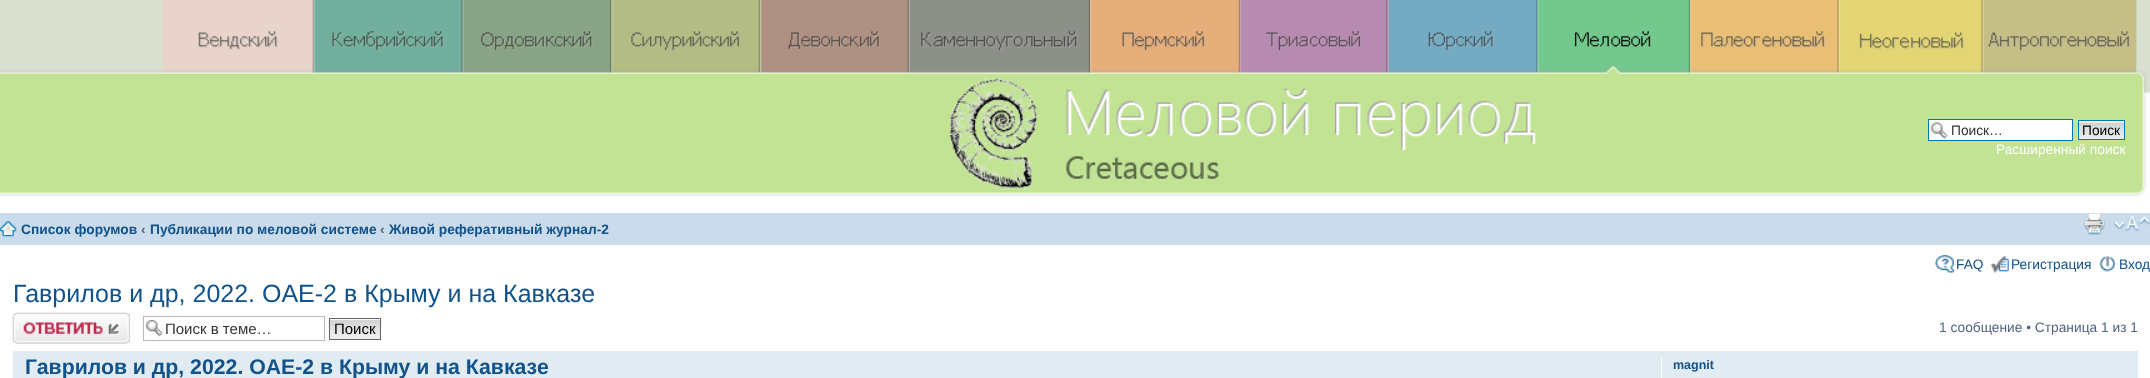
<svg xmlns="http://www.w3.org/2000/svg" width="2150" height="378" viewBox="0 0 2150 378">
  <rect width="100%" height="100%" fill="#ffffff"/>
  <image x="0" y="0" width="2150" height="197" href="img1.png"/>
  <rect x="1929" y="120" width="143" height="20" fill="#ffffff"/>
  <image x="1931" y="122" width="17" height="17" href="img2.png"/>
  <rect x="1928.5" y="119.5" width="144" height="21" fill="none" stroke="#0075b0"/>
  <text x="1951" y="135" font-family="Liberation Sans" font-size="13.75" fill="#333333">Поиск…</text>
  <image x="2077" y="121" width="47" height="19" href="img3.png"/>
  <rect x="2078.5" y="120.5" width="46" height="19" fill="none" stroke="#0075b0"/>
  <text x="2082" y="135" font-family="Liberation Sans" font-size="13.75" fill="#000000">Поиск</text>
  <text x="1996" y="154" font-family="Liberation Sans" font-size="13.75" fill="#ffffff">Расширенный поиск</text>
  <rect x="0" y="213" width="2150" height="32" fill="#cadceb"/>
  <image x="0" y="221" width="17" height="16" href="img4.png"/>
  <text x="21" y="234" font-family="Liberation Sans" font-size="13.75" font-weight="bold" fill="#105289">Список форумов</text>
  <text x="141" y="234" font-family="Liberation Sans" font-size="13.75" font-weight="bold" fill="#536482">‹</text>
  <text x="150" y="234" font-family="Liberation Sans" font-size="13.75" font-weight="bold" fill="#105289">Публикации по меловой системе</text>
  <text x="380" y="234" font-family="Liberation Sans" font-size="13.75" font-weight="bold" fill="#536482">‹</text>
  <text x="389" y="234" font-family="Liberation Sans" font-size="13.75" font-weight="bold" fill="#105289">Живой реферативный журнал-2</text>
  <image x="2083" y="213" width="22" height="22" href="img5.png"/>
  <image x="2113" y="216" width="37" height="16" href="img6.png"/>
  <image x="1935" y="255" width="20" height="18" href="img7.png"/>
  <text x="1956" y="269" font-family="Liberation Sans" font-size="13.75" fill="#105289">FAQ</text>
  <image x="1991" y="256" width="18" height="17" href="img8.png"/>
  <text x="2011" y="269" font-family="Liberation Sans" font-size="13.75" fill="#105289">Регистрация</text>
  <image x="2099" y="256" width="17" height="16" href="img9.png"/>
  <text x="2119" y="269" font-family="Liberation Sans" font-size="13.75" fill="#105289">Вход</text>
  <text x="13" y="302" font-family="Liberation Sans" font-size="25" fill="#105289">Гаврилов и др, 2022. OAE-2 в Крыму и на Кавказе</text>
  <image x="12" y="312" width="118" height="32" href="img10.png"/>
  <image x="146" y="319" width="17" height="18" href="img11.png"/>
  <rect x="143.5" y="316.5" width="181" height="24" fill="none" stroke="#b4bac0"/>
  <text x="165" y="334" font-family="Liberation Sans" font-size="15" fill="#333333">Поиск в теме…</text>
  <rect x="330" y="319" width="50" height="1" fill="#fafafa"/>
  <image x="328" y="320" width="54" height="20" href="img12.png"/>
  <rect x="329.5" y="318.5" width="51" height="21" fill="none" stroke="#666666"/>
  <text x="334" y="334" font-family="Liberation Sans" font-size="15" fill="#000000">Поиск</text>
  <text x="1939" y="332" font-family="Liberation Sans" font-size="13.75" fill="#536482">1 сообщение • Страница 1 из 1</text>
  <rect x="13" y="351" width="2125" height="27" fill="#e1ebf2"/>
  <text x="25" y="374" font-family="Liberation Sans" font-size="21.25" font-weight="bold" fill="#105289">Гаврилов и др, 2022. OAE-2 в Крыму и на Кавказе</text>
  <rect x="1661" y="358" width="1" height="20" fill="#ffffff"/>
  <text x="1673" y="369" font-family="Liberation Sans" font-size="12.5" font-weight="bold" fill="#105289">magnit</text>
</svg>
